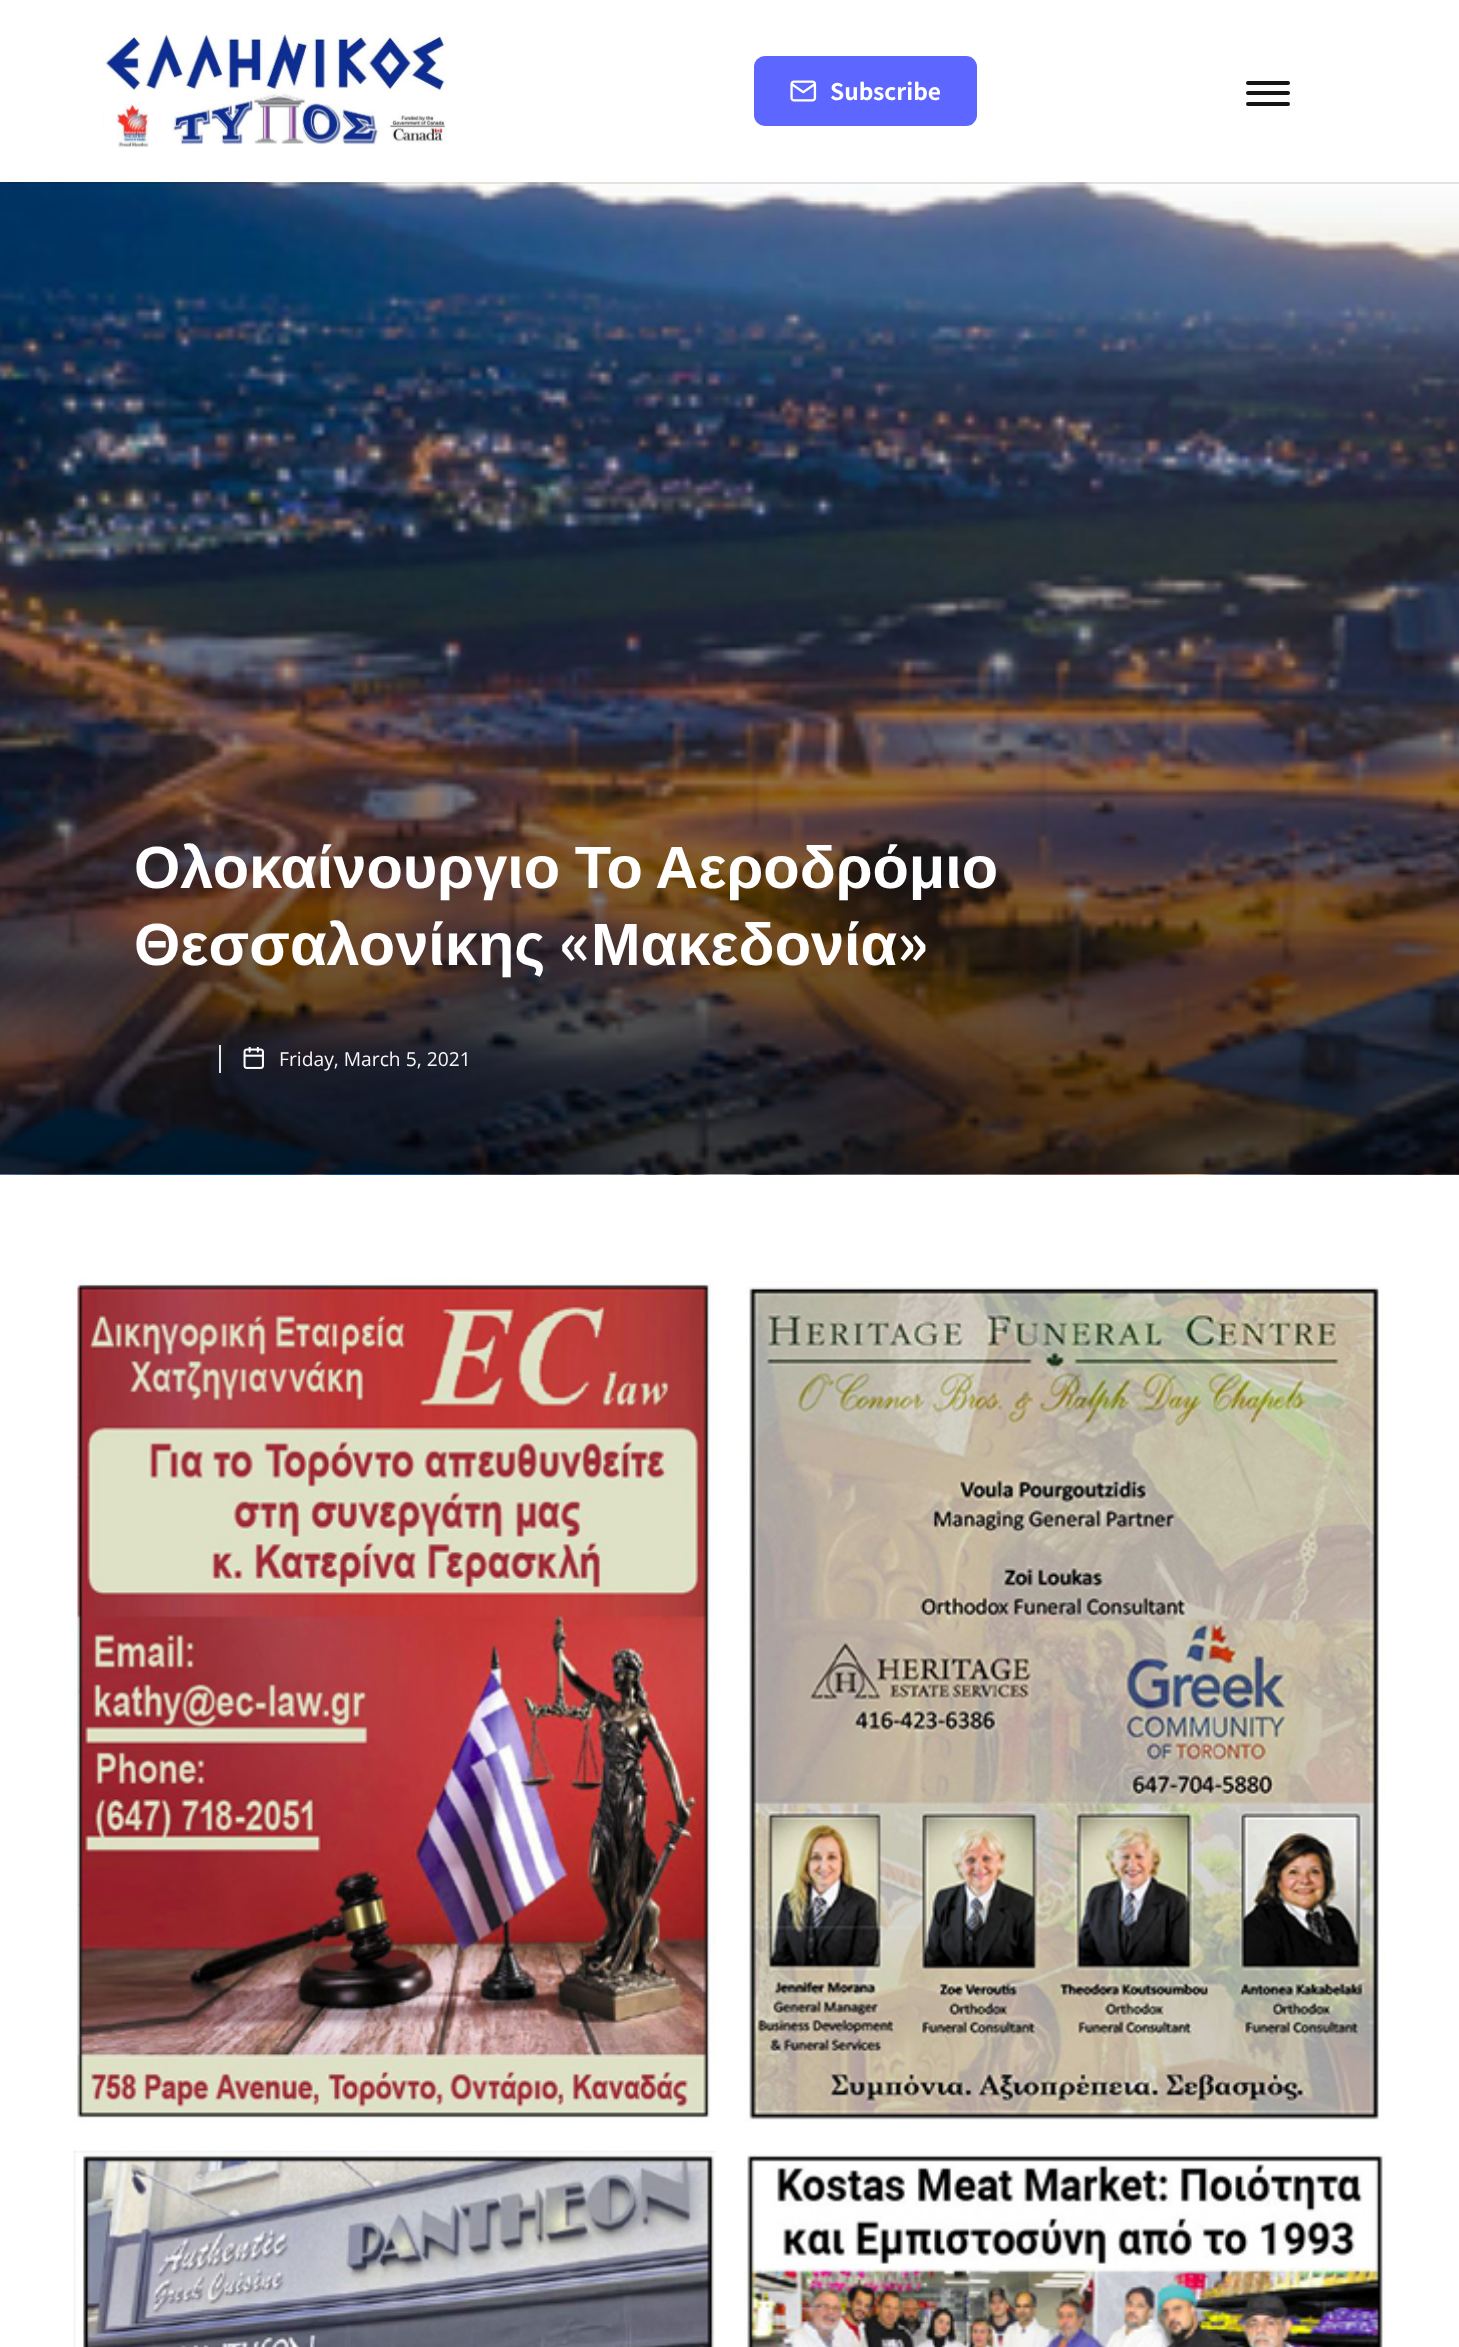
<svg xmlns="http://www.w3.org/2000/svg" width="1459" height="2347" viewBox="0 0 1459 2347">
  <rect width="100%" height="100%" fill="#ffffff"/>
  <image x="0" y="182" width="1459" height="993" href="img3.png"/>
  <path d="M0 182V184H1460V2V182Z" fill="#151515" fill-opacity="0.11"/>
  <image x="102" y="34" width="345" height="114" href="img1.png"/>
  <rect x="754" y="56" width="223" height="70" rx="11" fill="#5d66fe"/>
  <image x="790" y="80" width="27" height="22" href="img2.png"/>
  <text x="830" y="100" font-family="Noto Sans HK" font-size="22.75" font-weight="bold" fill="#ffffff">Subscribe</text>
  <rect x="1246" y="81" width="44" height="4" rx="2" fill="#151515"/>
  <rect x="1246" y="91" width="44" height="4" rx="2" fill="#151515"/>
  <rect x="1246" y="102" width="44" height="4" rx="2" fill="#151515"/>
  <text x="134" y="888" word-spacing="-2" font-family="Liberation Sans" font-size="59.5" font-weight="bold" fill="#ffffff">Ολοκαίνουργιο Το Αεροδρόμιο</text>
  <text x="134" y="965" font-family="Liberation Sans" font-size="59.5" font-weight="bold" fill="#ffffff">Θεσσαλονίκης</text>
  <text x="559" y="965" font-family="Noto Sans HK" font-size="59.5" font-weight="bold" fill="#ffffff">«</text>
  <text x="591" y="965" font-family="Liberation Sans" font-size="59.5" font-weight="bold" fill="#ffffff">Μακεδονία</text>
  <text x="897" y="965" font-family="Noto Sans HK" font-size="59.5" font-weight="bold" fill="#ffffff">»</text>
  <rect x="219" y="1045" width="2" height="28" fill="#e6e6e6"/>
  <image x="243" y="1047" width="21" height="22" href="img4.png"/>
  <text x="279" y="1066" font-family="Open Sans" font-size="19.25" fill="#f6f6f6">Friday, March 5, 2021</text>
  <image x="74" y="1279" width="642" height="844" href="img5.png"/>
  <image x="744" y="1280" width="642" height="842" href="img6.png"/>
  <image x="73" y="2150" width="643" height="197" href="img7.png"/>
  <image x="744" y="2154" width="642" height="193" href="img8.png"/>
</svg>
